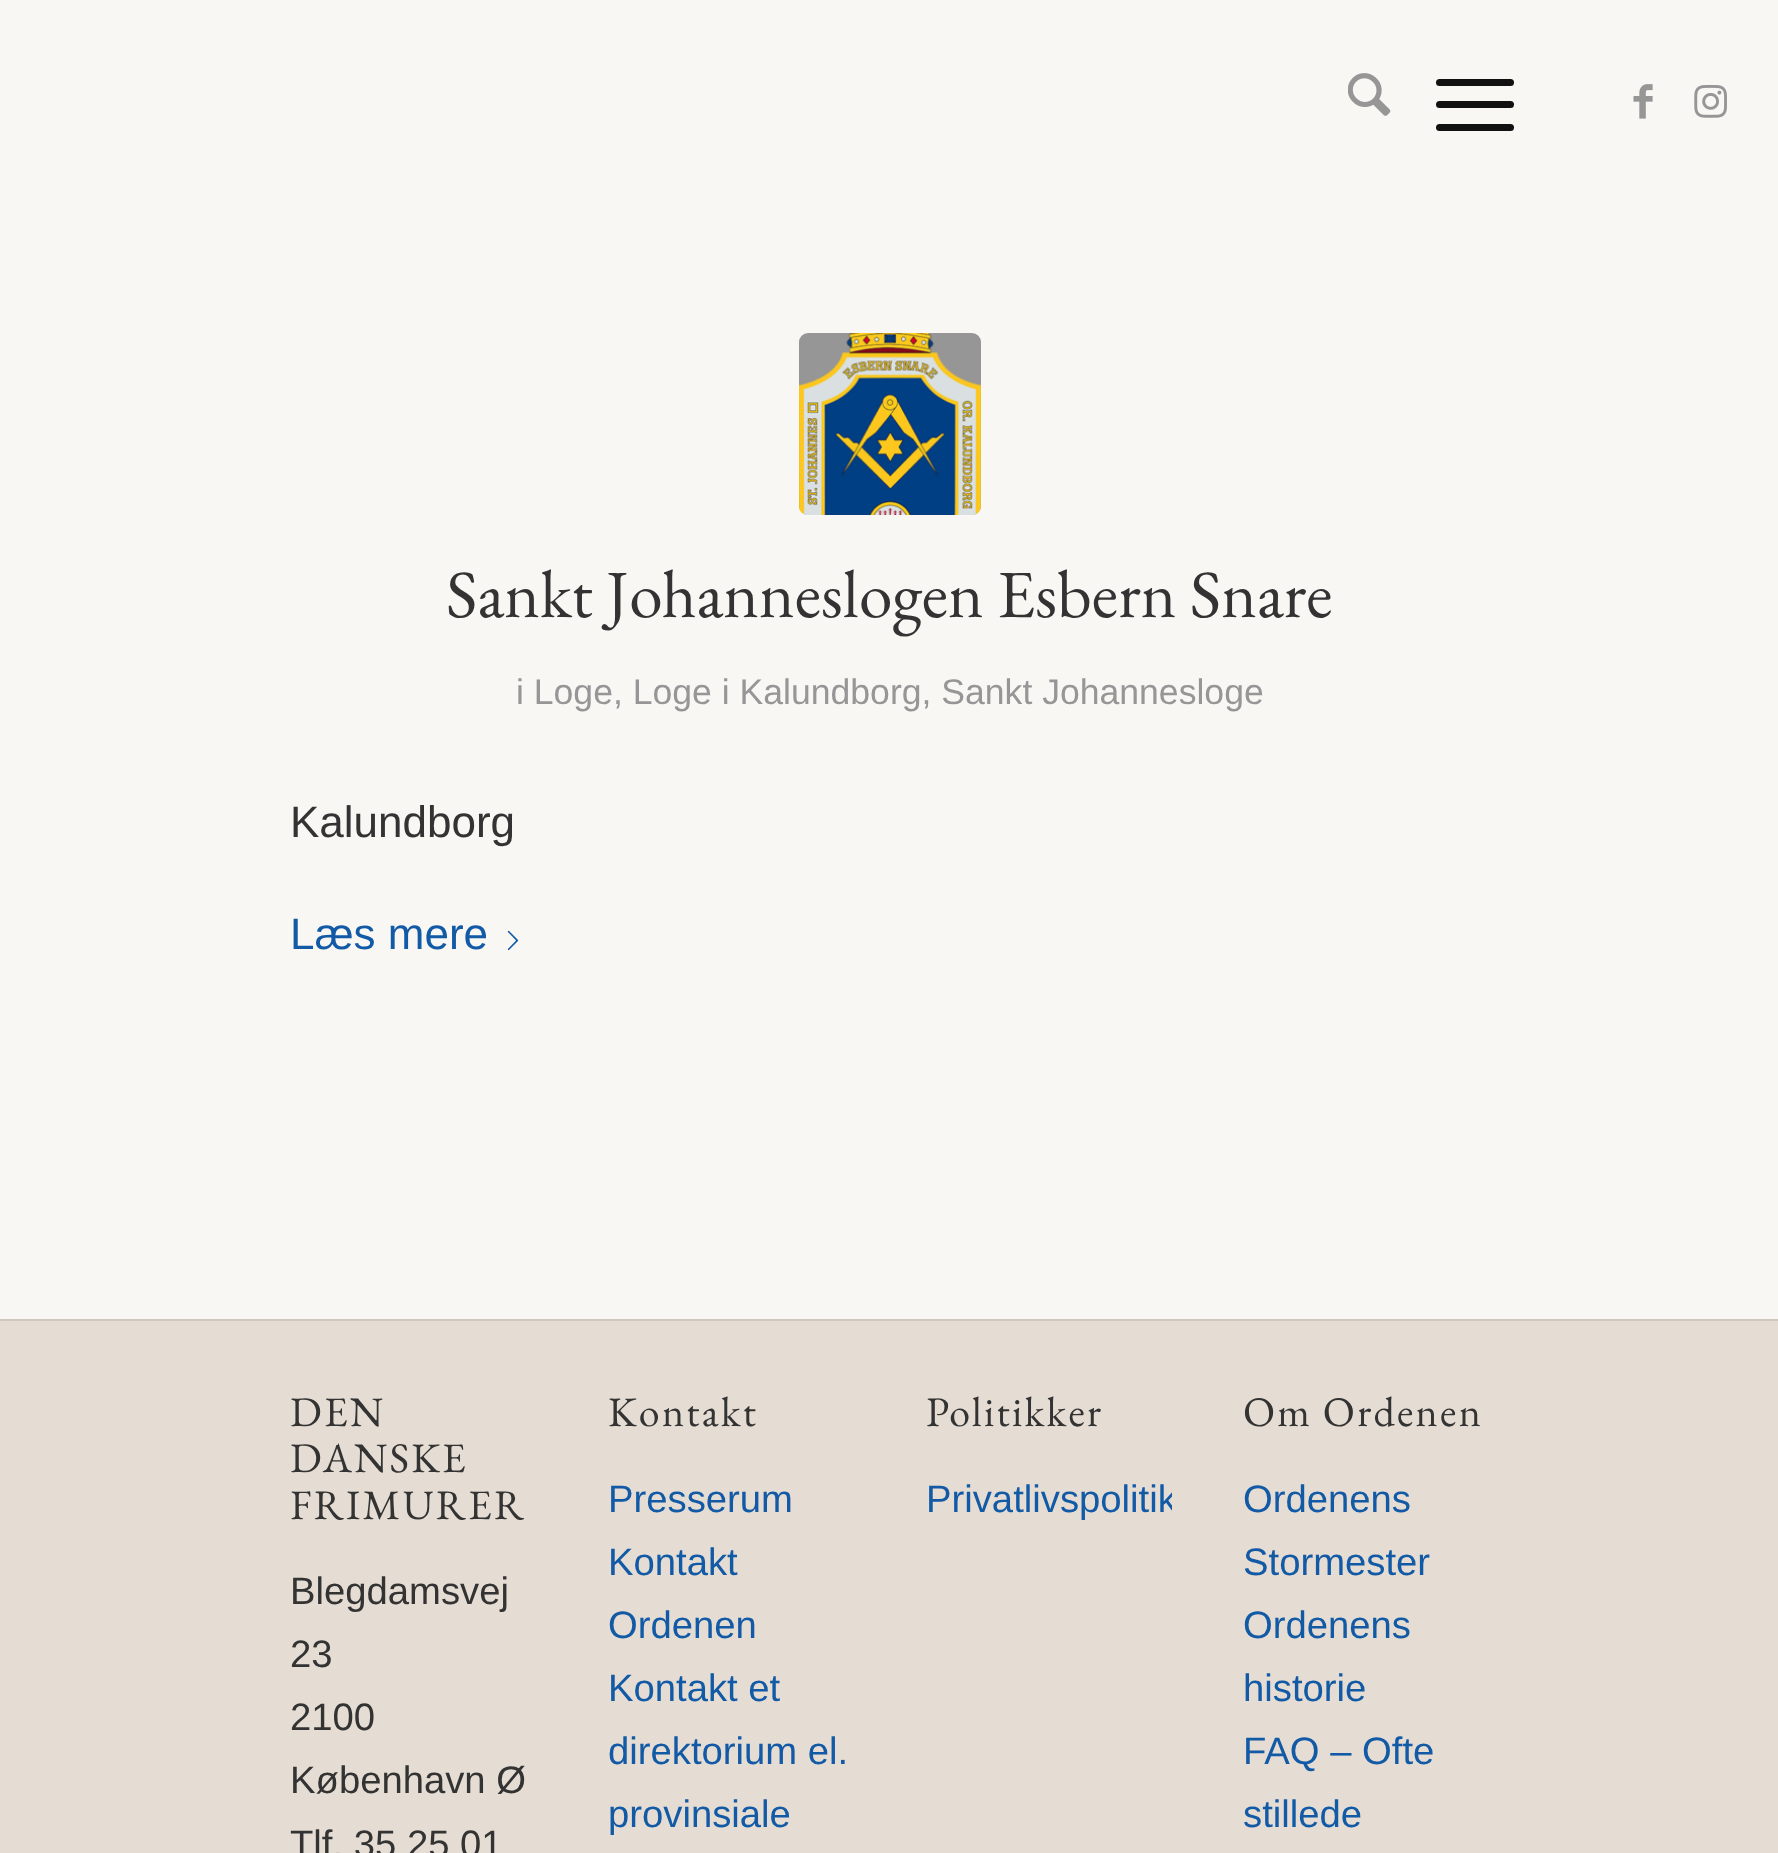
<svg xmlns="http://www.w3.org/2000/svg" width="1778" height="1853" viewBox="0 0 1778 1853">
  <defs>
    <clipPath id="clip1"><rect x="925" y="1355" width="247" height="209"/></clipPath>
  </defs>
  <rect width="100%" height="100%" fill="#f9f7f4"/>
  <image x="1348" y="73" width="43" height="43" href="img1.png"/>
  <rect x="1436" y="101" width="78" height="7" rx="3.5" fill="#111111"/>
  <rect x="1436" y="79" width="78" height="7" rx="3.5" fill="#111111"/>
  <rect x="1436" y="124" width="78" height="7" rx="3.5" fill="#111111"/>
  <image x="1633" y="84" width="20" height="35" href="img2.png"/>
  <image x="1694" y="84" width="33" height="34" href="img3.png"/>
  <rect x="799" y="333" width="182" height="182" rx="9" fill="#969696"/>
  <image x="799" y="333" width="182" height="182" href="img4.png"/>
  <text x="446" y="617" font-family="EB Garamond" font-size="67.5" fill="#333333">Sankt Johanneslogen Esbern Snare</text>
  <text x="516" y="704" font-family="Liberation Sans" font-size="35.6" fill="#969696">i Loge, Loge i Kalundborg, Sankt Johannesloge</text>
  <text x="290" y="837" font-family="Liberation Sans" font-size="44" fill="#333333">Kalundborg</text>
  <text x="290" y="949" font-family="Liberation Sans" font-size="44" fill="#125aa6">Læs mere</text>
  <image x="507" y="930" width="12" height="21" href="img5.png"/>
  <rect x="0" y="1321" width="1778" height="532" fill="#e5ddd3"/>
  <rect x="0" y="1319" width="1778" height="2" fill="#cfc8bf"/>
  <text x="290" y="1426" font-family="EB Garamond" font-size="42" letter-spacing="2.25" fill="#333333">DEN</text>
  <text x="290" y="1472" font-family="EB Garamond" font-size="42" letter-spacing="2.25" fill="#333333">DANSKE</text>
  <text x="290" y="1519" font-family="EB Garamond" font-size="42" letter-spacing="2.25" fill="#333333">FRIMURER</text>
  <text x="290" y="1604" font-family="Liberation Sans" font-size="38.25" fill="#333333">Blegdamsvej</text>
  <text x="290" y="1667" font-family="Liberation Sans" font-size="38.25" fill="#333333">23</text>
  <text x="290" y="1730" font-family="Liberation Sans" font-size="38.25" fill="#333333">2100</text>
  <text x="290" y="1793" font-family="Liberation Sans" font-size="38.25" fill="#333333">København Ø</text>
  <text x="290" y="1857" font-family="Liberation Sans" font-size="38.25" fill="#333333">Tlf. 35 25 01</text>
  <text x="608" y="1426" font-family="EB Garamond" font-size="42" letter-spacing="2.25" fill="#333333">Kontakt</text>
  <text x="608" y="1512" font-family="Liberation Sans" font-size="38.25" fill="#125aa6">Presserum</text>
  <text x="608" y="1575" font-family="Liberation Sans" font-size="38.25" fill="#125aa6">Kontakt</text>
  <text x="608" y="1638" font-family="Liberation Sans" font-size="38.25" fill="#125aa6">Ordenen</text>
  <text x="608" y="1701" font-family="Liberation Sans" font-size="38.25" fill="#125aa6">Kontakt et</text>
  <text x="608" y="1764" font-family="Liberation Sans" font-size="38.25" fill="#125aa6">direktorium el.</text>
  <text x="608" y="1827" font-family="Liberation Sans" font-size="38.25" fill="#125aa6">provinsiale</text>
  <text x="926" y="1426" font-family="EB Garamond" font-size="42" letter-spacing="2.25" fill="#333333">Politikker</text>
  <g clip-path="url(#clip1)">
    <text x="926" y="1512" font-family="Liberation Sans" font-size="38.25" fill="#125aa6">Privatlivspolitik</text>
  </g>
  <text x="1243" y="1426" font-family="EB Garamond" font-size="42" letter-spacing="2.25" fill="#333333">Om Ordenen</text>
  <text x="1243" y="1512" font-family="Liberation Sans" font-size="38.25" fill="#125aa6">Ordenens</text>
  <text x="1243" y="1575" font-family="Liberation Sans" font-size="38.25" fill="#125aa6">Stormester</text>
  <text x="1243" y="1638" font-family="Liberation Sans" font-size="38.25" fill="#125aa6">Ordenens</text>
  <text x="1243" y="1701" font-family="Liberation Sans" font-size="38.25" fill="#125aa6">historie</text>
  <text x="1243" y="1764" font-family="Liberation Sans" font-size="38.25" fill="#125aa6">FAQ – Ofte</text>
  <text x="1243" y="1827" font-family="Liberation Sans" font-size="38.25" fill="#125aa6">stillede</text>
</svg>
